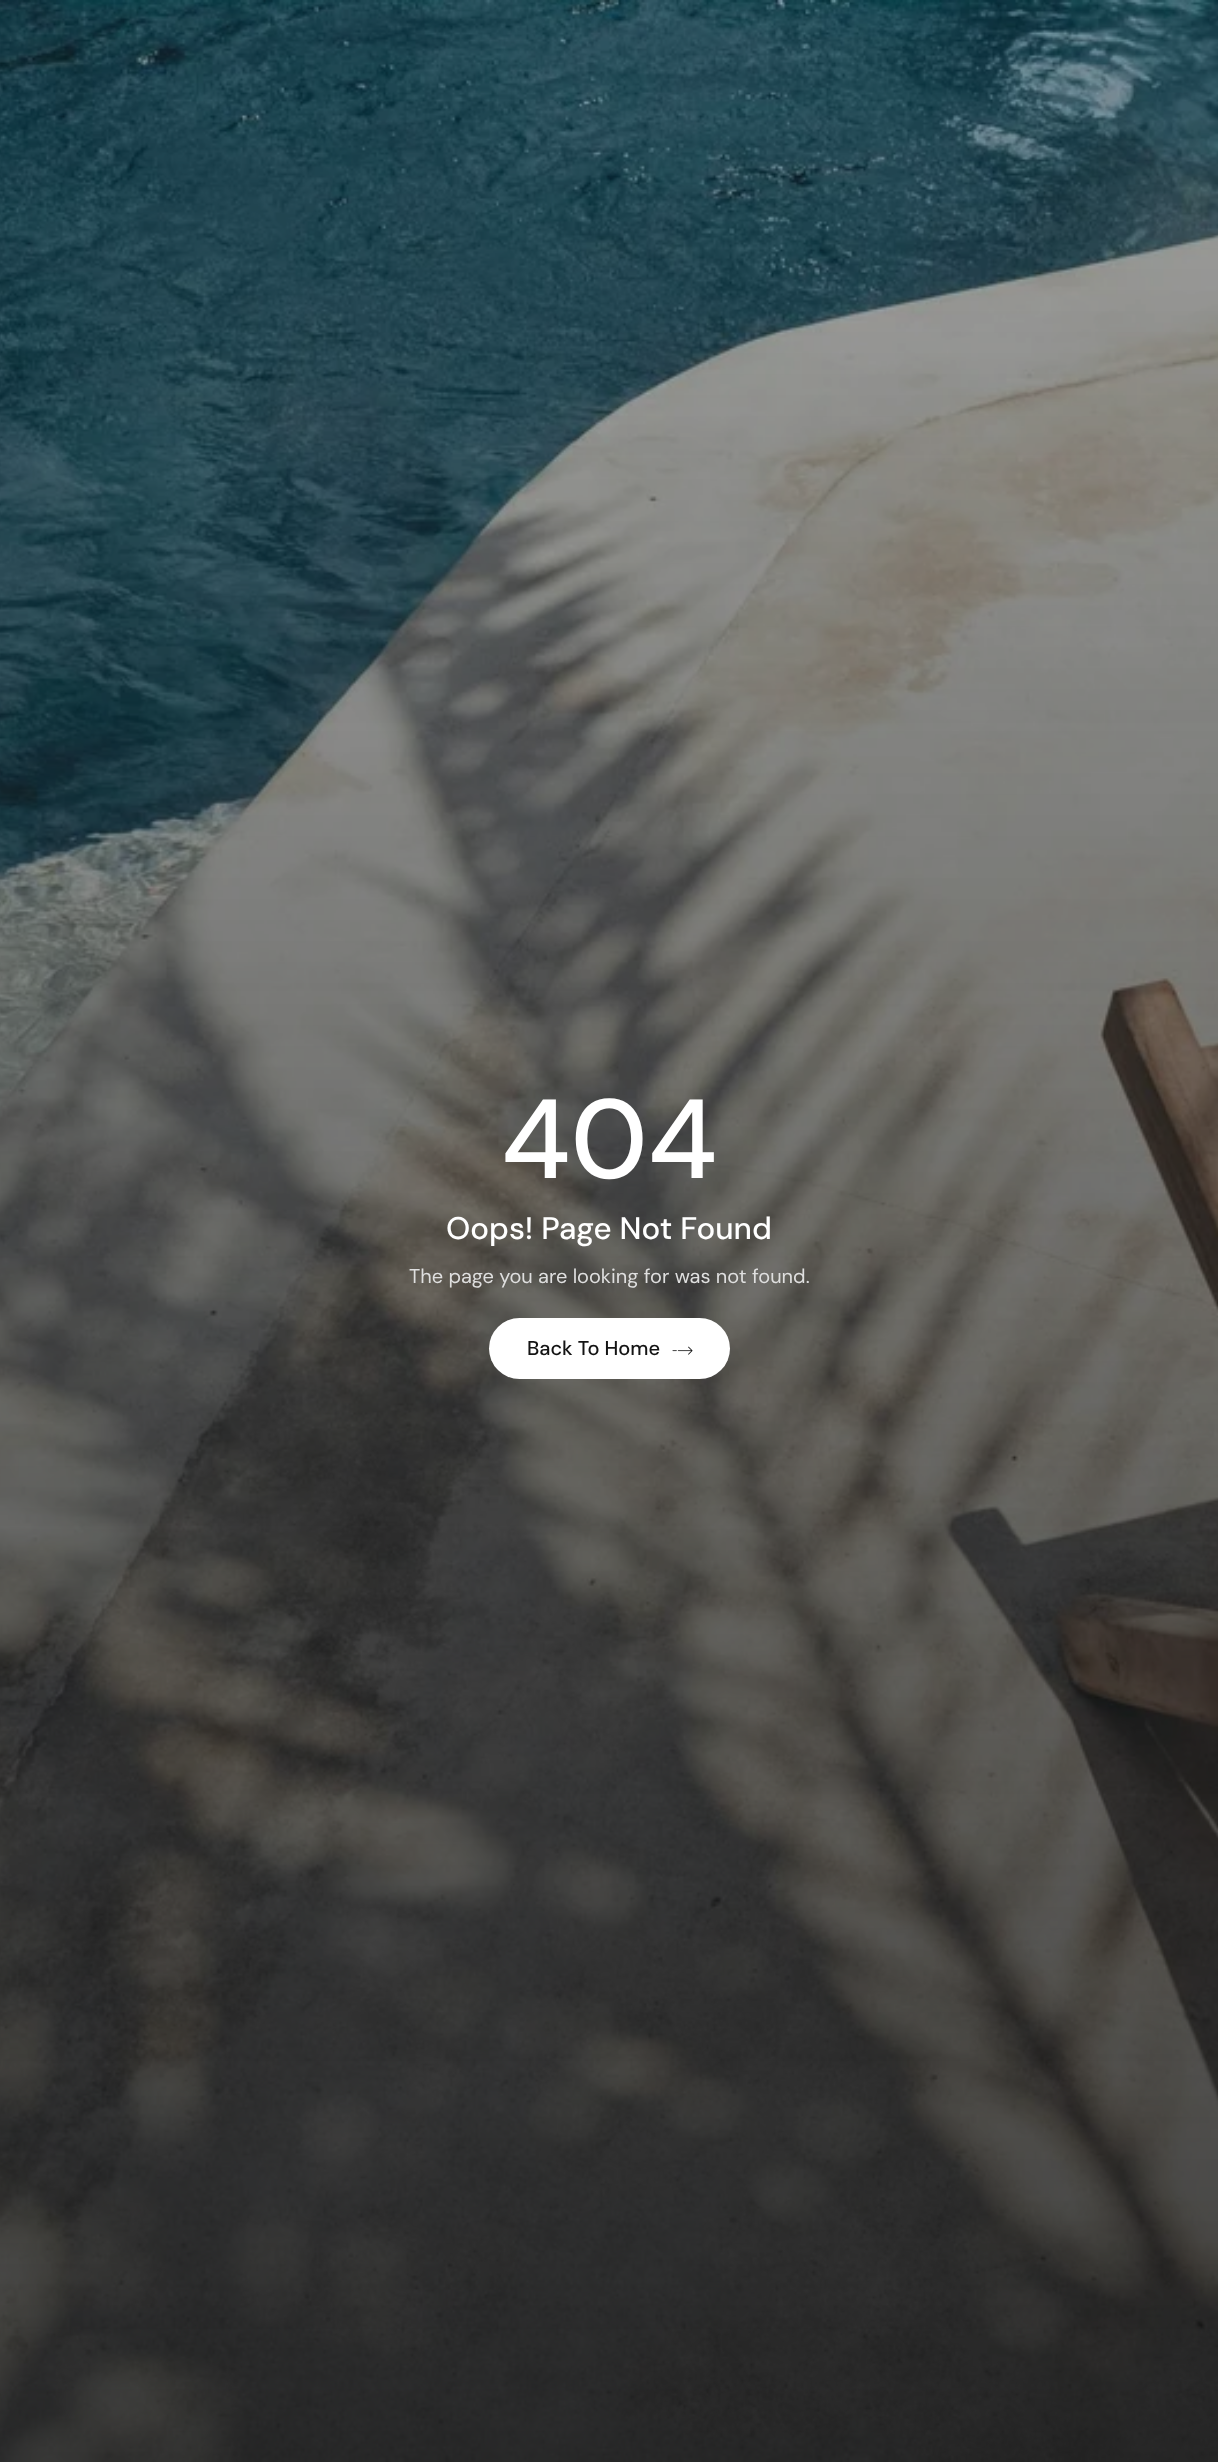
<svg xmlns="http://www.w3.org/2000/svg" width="1218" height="2462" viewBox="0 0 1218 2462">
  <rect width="100%" height="100%" fill="#ffffff"/>
  <image x="0" y="0" width="1218" height="2462" href="img1.png"/>
  <text x="501" y="1178" font-family="DM Sans" font-size="112" font-weight="500" fill="#ffffff">404</text>
  <text x="446" y="1239" font-family="DM Sans" font-size="31.25" font-weight="500" fill="#ffffff">Oops! Page Not Found</text>
  <text x="409" y="1283" font-family="DM Sans" font-size="20" fill="#dfdfdf">The page you are looking for was not found.</text>
  <rect x="489" y="1318" width="241" height="61" rx="30.5" fill="#ffffff"/>
  <text x="527" y="1355" font-family="DM Sans" font-size="20" font-weight="500" fill="#141414">Back To Home</text>
  <image x="672" y="1346" width="21" height="9" href="img2.png"/>
</svg>
